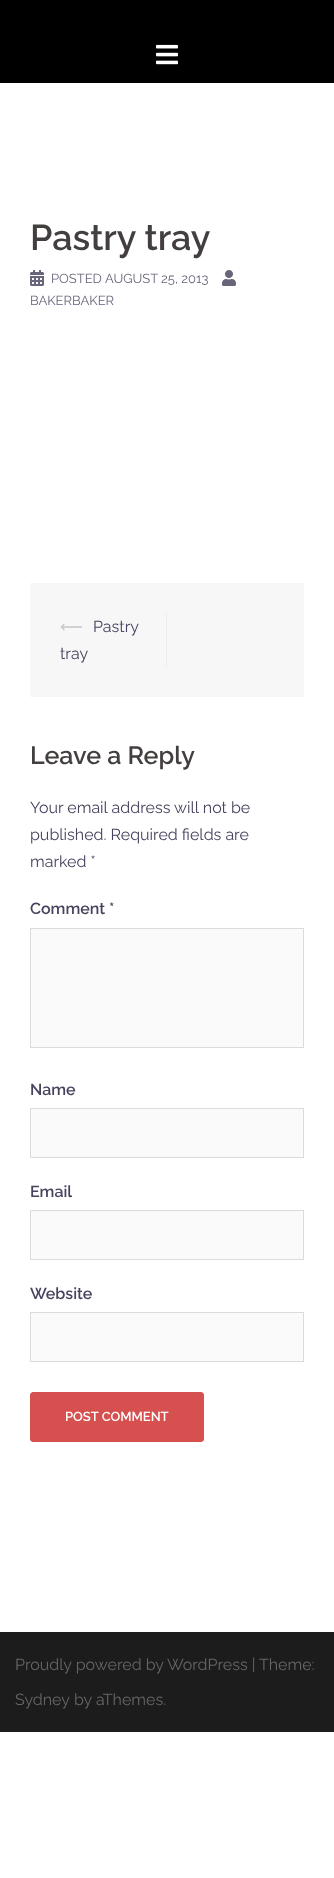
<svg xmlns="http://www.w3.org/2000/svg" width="334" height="1878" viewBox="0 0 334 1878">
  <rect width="100%" height="100%" fill="#ffffff"/>
  <rect x="0" y="0" width="334" height="83" fill="#000000"/>
  <image x="156" y="44" width="22" height="21" href="img1.png"/>
  <text x="30" y="250" font-family="Raleway" font-size="36" font-weight="600" fill="#443f3f">Pastry tray</text>
  <image x="30" y="270" width="14" height="16" href="img2.png"/>
  <text x="51" y="283" font-family="Raleway" font-size="13" fill="#68647a">POSTED</text>
  <text x="105" y="283" font-family="Raleway" font-size="13" fill="#68647a">AUGUST 25, 2013</text>
  <image x="222" y="270" width="14" height="16" href="img3.png"/>
  <text x="30" y="305" font-family="Raleway" font-size="13" fill="#68647a">BAKERBAKER</text>
  <rect x="30" y="583" width="274" height="114" fill="#f7f7f7"/>
  <rect x="166" y="613" width="1" height="54" fill="#ebebeb"/>
  <text x="60" y="632" font-family="DejaVu Sans" font-size="16" fill="#c7c7c7">⟵</text>
  <text x="93" y="632" font-family="Raleway" font-size="16" fill="#47425d">Pastry</text>
  <text x="60" y="659" font-family="Raleway" font-size="16" fill="#47425d">tray</text>
  <text x="30" y="764" font-family="Raleway" font-size="25" font-weight="600" fill="#443f3f">Leave a Reply</text>
  <text x="30" y="813" font-family="Raleway" font-size="16" fill="#47425d">Your email address will not be</text>
  <text x="30" y="840" font-family="Raleway" font-size="16" fill="#47425d">published. Required fields are</text>
  <text x="30" y="867" font-family="Raleway" font-size="16" fill="#47425d">marked *</text>
  <text x="30" y="914" font-family="Raleway" font-size="16" font-weight="600" fill="#47425d">Comment *</text>
  <rect x="30.5" y="928.5" width="273" height="119" fill="#fafafa" stroke="#dbdbdb"/>
  <text x="30" y="1095" font-family="Raleway" font-size="16" font-weight="600" fill="#47425d">Name</text>
  <rect x="30.5" y="1108.5" width="273" height="49" fill="#fafafa" stroke="#dbdbdb"/>
  <text x="30" y="1197" font-family="Raleway" font-size="16" font-weight="600" fill="#47425d">Email</text>
  <rect x="30.5" y="1210.5" width="273" height="49" fill="#fafafa" stroke="#dbdbdb"/>
  <text x="30" y="1299" font-family="Raleway" font-size="16" font-weight="600" fill="#47425d">Website</text>
  <rect x="30.5" y="1312.5" width="273" height="49" fill="#fafafa" stroke="#dbdbdb"/>
  <rect x="30.5" y="1392.5" width="173" height="49" rx="2.5" fill="#d65050" stroke="#d65050"/>
  <text x="65" y="1421" font-family="Raleway" font-size="13" font-weight="600" fill="#ffffff">POST COMMENT</text>
  <rect x="0" y="1632" width="334" height="100" fill="#1c1c1c"/>
  <text x="15" y="1670" font-family="Raleway" font-size="16" fill="#666666">Proudly powered by WordPress |</text>
  <text x="259" y="1670" font-family="Raleway" font-size="16" fill="#666666">Theme:</text>
  <text x="15" y="1705" font-family="Raleway" font-size="16" fill="#666666">Sydney</text>
  <text x="74" y="1705" font-family="Raleway" font-size="16" fill="#666666">by aThemes.</text>
</svg>
